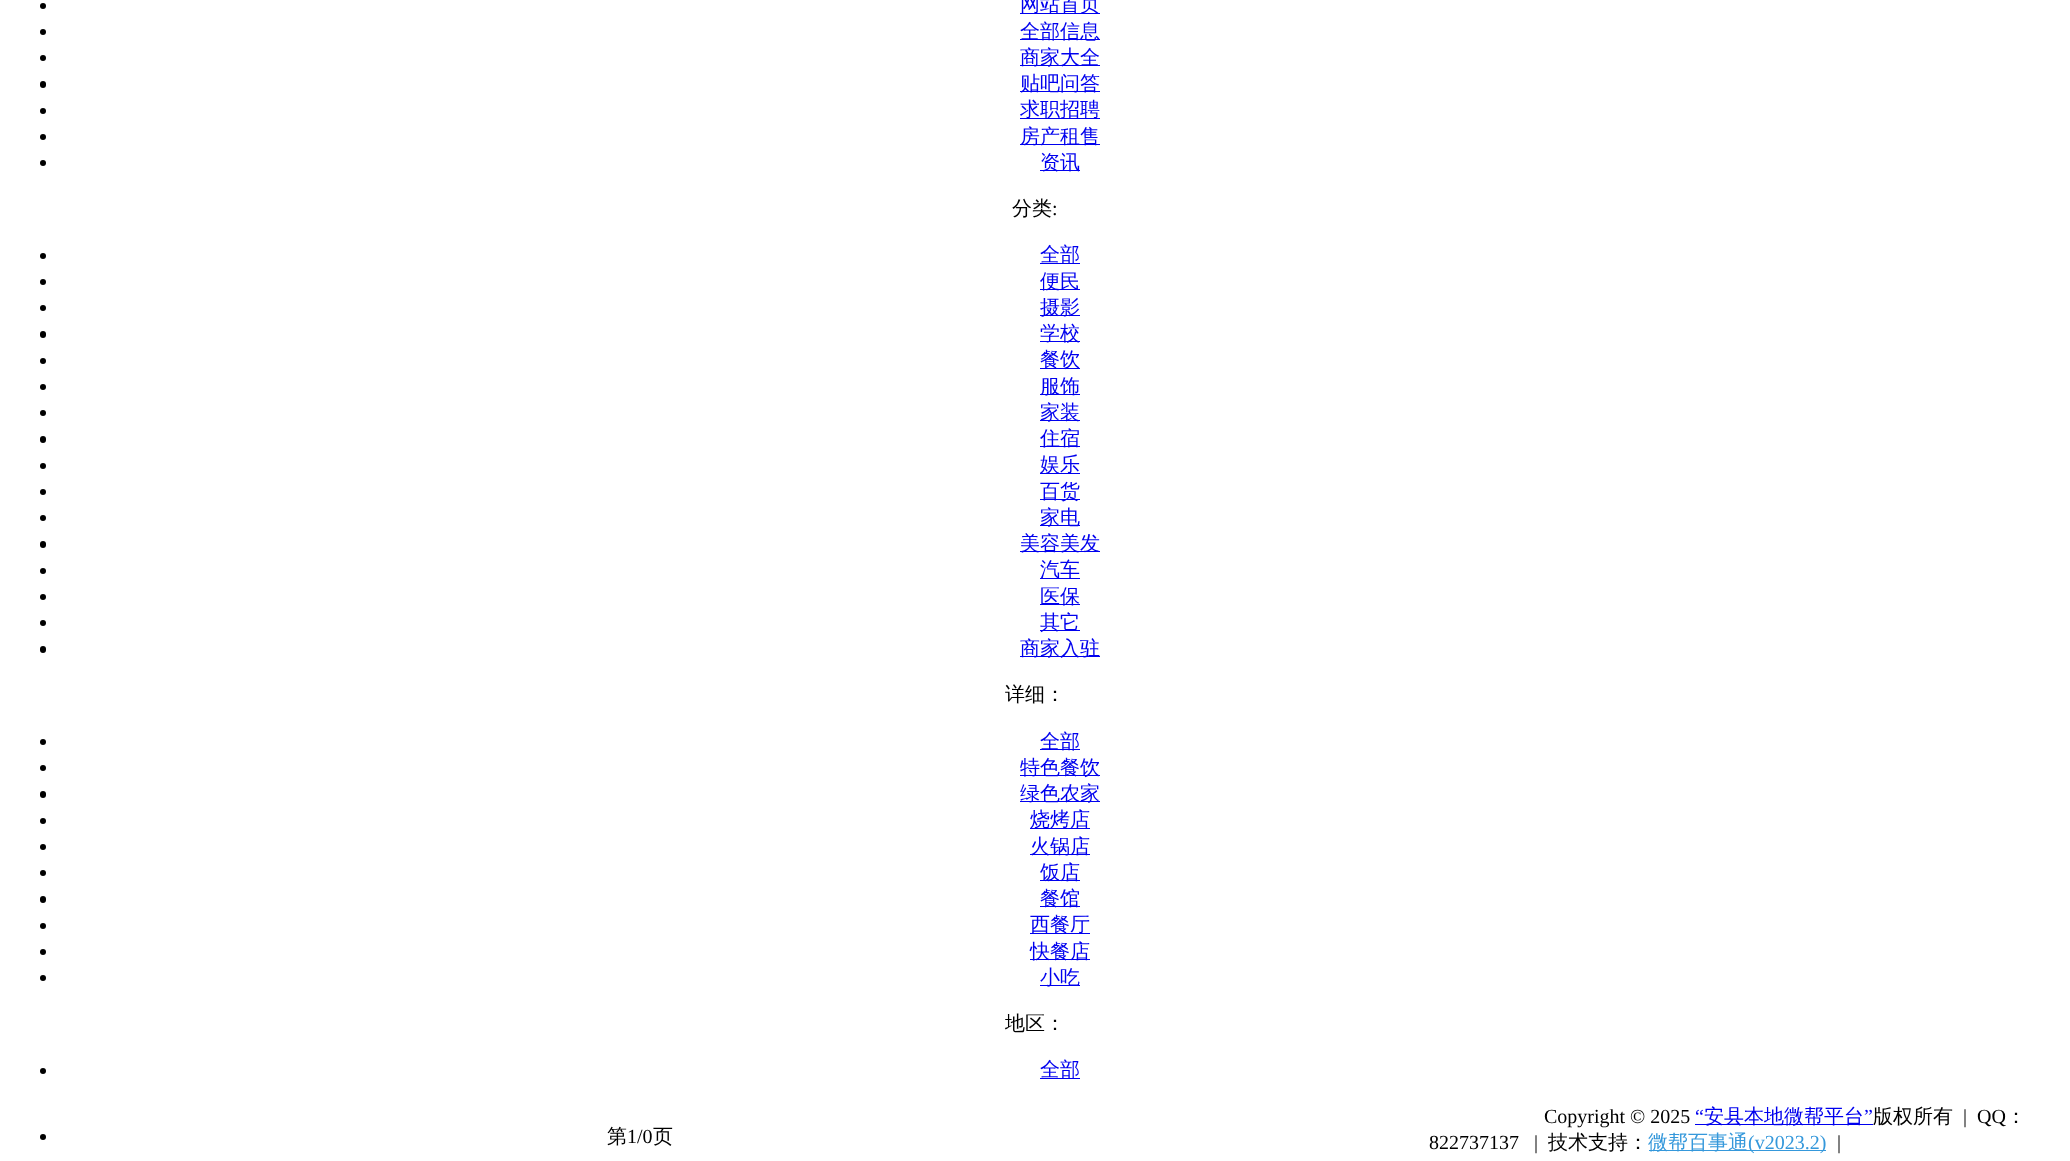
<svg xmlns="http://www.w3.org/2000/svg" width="2070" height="1161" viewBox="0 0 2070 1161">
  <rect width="100%" height="100%" fill="#ffffff"/>
  <circle cx="43" cy="6" r="3" fill="#000000"/>
  <rect x="1020" y="13" width="80" height="1" fill="#0000ee"/>
  <text x="1020" y="11" font-family="WenQuanYi Zen Hei" font-size="20" font-weight="500" fill="#0000ee">网站首页</text>
  <circle cx="43" cy="32" r="3" fill="#000000"/>
  <rect x="1020" y="39" width="80" height="1" fill="#0000ee"/>
  <text x="1020" y="38" font-family="WenQuanYi Zen Hei" font-size="20" font-weight="500" fill="#0000ee">全部信息</text>
  <circle cx="43" cy="58" r="3" fill="#000000"/>
  <rect x="1020" y="65" width="80" height="1" fill="#0000ee"/>
  <text x="1020" y="64" font-family="WenQuanYi Zen Hei" font-size="20" font-weight="500" fill="#0000ee">商家大全</text>
  <rect x="40" y="81" width="6" height="7" rx="3" fill="#000000"/>
  <rect x="1020" y="91" width="80" height="1" fill="#0000ee"/>
  <text x="1020" y="90" font-family="WenQuanYi Zen Hei" font-size="20" font-weight="500" fill="#0000ee">贴吧问答</text>
  <circle cx="43" cy="111" r="3" fill="#000000"/>
  <rect x="1020" y="118" width="80" height="1" fill="#0000ee"/>
  <text x="1020" y="116" font-family="WenQuanYi Zen Hei" font-size="20" font-weight="500" fill="#0000ee">求职招聘</text>
  <circle cx="43" cy="137" r="3" fill="#000000"/>
  <rect x="1020" y="144" width="80" height="1" fill="#0000ee"/>
  <text x="1020" y="143" font-family="WenQuanYi Zen Hei" font-size="20" font-weight="500" fill="#0000ee">房产租售</text>
  <circle cx="43" cy="163" r="3" fill="#000000"/>
  <rect x="1040" y="170" width="40" height="1" fill="#0000ee"/>
  <text x="1040" y="169" font-family="WenQuanYi Zen Hei" font-size="20" font-weight="500" fill="#0000ee">资讯</text>
  <text x="1012" y="215" font-family="WenQuanYi Zen Hei" font-size="20" font-weight="500" fill="#000000">分类</text>
  <text x="1052" y="215" font-family="Liberation Serif" font-size="20" fill="#000000">:</text>
  <circle cx="43" cy="256" r="3" fill="#000000"/>
  <rect x="1040" y="263" width="40" height="1" fill="#0000ee"/>
  <text x="1040" y="261" font-family="WenQuanYi Zen Hei" font-size="20" font-weight="500" fill="#0000ee">全部</text>
  <circle cx="43" cy="282" r="3" fill="#000000"/>
  <rect x="1040" y="289" width="40" height="1" fill="#0000ee"/>
  <text x="1040" y="288" font-family="WenQuanYi Zen Hei" font-size="20" font-weight="500" fill="#0000ee">便民</text>
  <circle cx="43" cy="308" r="3" fill="#000000"/>
  <rect x="1040" y="315" width="40" height="1" fill="#0000ee"/>
  <text x="1040" y="314" font-family="WenQuanYi Zen Hei" font-size="20" font-weight="500" fill="#0000ee">摄影</text>
  <rect x="40" y="331" width="6" height="7" rx="3" fill="#000000"/>
  <rect x="1040" y="341" width="40" height="1" fill="#0000ee"/>
  <text x="1040" y="340" font-family="WenQuanYi Zen Hei" font-size="20" font-weight="500" fill="#0000ee">学校</text>
  <circle cx="43" cy="361" r="3" fill="#000000"/>
  <rect x="1040" y="368" width="40" height="1" fill="#0000ee"/>
  <text x="1040" y="366" font-family="WenQuanYi Zen Hei" font-size="20" font-weight="500" fill="#0000ee">餐饮</text>
  <circle cx="43" cy="387" r="3" fill="#000000"/>
  <rect x="1040" y="394" width="40" height="1" fill="#0000ee"/>
  <text x="1040" y="393" font-family="WenQuanYi Zen Hei" font-size="20" font-weight="500" fill="#0000ee">服饰</text>
  <circle cx="43" cy="413" r="3" fill="#000000"/>
  <rect x="1040" y="420" width="40" height="1" fill="#0000ee"/>
  <text x="1040" y="419" font-family="WenQuanYi Zen Hei" font-size="20" font-weight="500" fill="#0000ee">家装</text>
  <rect x="40" y="436" width="6" height="7" rx="3" fill="#000000"/>
  <rect x="1040" y="446" width="40" height="1" fill="#0000ee"/>
  <text x="1040" y="445" font-family="WenQuanYi Zen Hei" font-size="20" font-weight="500" fill="#0000ee">住宿</text>
  <circle cx="43" cy="466" r="3" fill="#000000"/>
  <rect x="1040" y="473" width="40" height="1" fill="#0000ee"/>
  <text x="1040" y="471" font-family="WenQuanYi Zen Hei" font-size="20" font-weight="500" fill="#0000ee">娱乐</text>
  <circle cx="43" cy="492" r="3" fill="#000000"/>
  <rect x="1040" y="499" width="40" height="1" fill="#0000ee"/>
  <text x="1040" y="498" font-family="WenQuanYi Zen Hei" font-size="20" font-weight="500" fill="#0000ee">百货</text>
  <circle cx="43" cy="518" r="3" fill="#000000"/>
  <rect x="1040" y="525" width="40" height="1" fill="#0000ee"/>
  <text x="1040" y="524" font-family="WenQuanYi Zen Hei" font-size="20" font-weight="500" fill="#0000ee">家电</text>
  <rect x="40" y="541" width="6" height="7" rx="3" fill="#000000"/>
  <rect x="1020" y="551" width="80" height="1" fill="#0000ee"/>
  <text x="1020" y="550" font-family="WenQuanYi Zen Hei" font-size="20" font-weight="500" fill="#0000ee">美容美发</text>
  <circle cx="43" cy="571" r="3" fill="#000000"/>
  <rect x="1040" y="578" width="40" height="1" fill="#0000ee"/>
  <text x="1040" y="576" font-family="WenQuanYi Zen Hei" font-size="20" font-weight="500" fill="#0000ee">汽车</text>
  <circle cx="43" cy="597" r="3" fill="#000000"/>
  <rect x="1040" y="604" width="40" height="1" fill="#0000ee"/>
  <text x="1040" y="603" font-family="WenQuanYi Zen Hei" font-size="20" font-weight="500" fill="#0000ee">医保</text>
  <circle cx="43" cy="623" r="3" fill="#000000"/>
  <rect x="1040" y="630" width="40" height="1" fill="#0000ee"/>
  <text x="1040" y="629" font-family="WenQuanYi Zen Hei" font-size="20" font-weight="500" fill="#0000ee">其它</text>
  <rect x="40" y="646" width="6" height="7" rx="3" fill="#000000"/>
  <rect x="1020" y="656" width="80" height="1" fill="#0000ee"/>
  <text x="1020" y="655" font-family="WenQuanYi Zen Hei" font-size="20" font-weight="500" fill="#0000ee">商家入驻</text>
  <text x="1005" y="701" font-family="WenQuanYi Zen Hei" font-size="20" font-weight="500" fill="#000000">详细：</text>
  <circle cx="43" cy="742" r="3" fill="#000000"/>
  <rect x="1040" y="749" width="40" height="1" fill="#0000ee"/>
  <text x="1040" y="748" font-family="WenQuanYi Zen Hei" font-size="20" font-weight="500" fill="#0000ee">全部</text>
  <circle cx="43" cy="768" r="3" fill="#000000"/>
  <rect x="1020" y="775" width="80" height="1" fill="#0000ee"/>
  <text x="1020" y="774" font-family="WenQuanYi Zen Hei" font-size="20" font-weight="500" fill="#0000ee">特色餐饮</text>
  <rect x="40" y="791" width="6" height="7" rx="3" fill="#000000"/>
  <rect x="1020" y="801" width="80" height="1" fill="#0000ee"/>
  <text x="1020" y="800" font-family="WenQuanYi Zen Hei" font-size="20" font-weight="500" fill="#0000ee">绿色农家</text>
  <circle cx="43" cy="821" r="3" fill="#000000"/>
  <rect x="1030" y="828" width="60" height="1" fill="#0000ee"/>
  <text x="1030" y="826" font-family="WenQuanYi Zen Hei" font-size="20" font-weight="500" fill="#0000ee">烧烤店</text>
  <circle cx="43" cy="847" r="3" fill="#000000"/>
  <rect x="1030" y="854" width="60" height="1" fill="#0000ee"/>
  <text x="1030" y="853" font-family="WenQuanYi Zen Hei" font-size="20" font-weight="500" fill="#0000ee">火锅店</text>
  <circle cx="43" cy="873" r="3" fill="#000000"/>
  <rect x="1040" y="880" width="40" height="1" fill="#0000ee"/>
  <text x="1040" y="879" font-family="WenQuanYi Zen Hei" font-size="20" font-weight="500" fill="#0000ee">饭店</text>
  <rect x="40" y="896" width="6" height="7" rx="3" fill="#000000"/>
  <rect x="1040" y="906" width="40" height="1" fill="#0000ee"/>
  <text x="1040" y="905" font-family="WenQuanYi Zen Hei" font-size="20" font-weight="500" fill="#0000ee">餐馆</text>
  <circle cx="43" cy="926" r="3" fill="#000000"/>
  <rect x="1030" y="933" width="60" height="1" fill="#0000ee"/>
  <text x="1030" y="931" font-family="WenQuanYi Zen Hei" font-size="20" font-weight="500" fill="#0000ee">西餐厅</text>
  <circle cx="43" cy="952" r="3" fill="#000000"/>
  <rect x="1030" y="959" width="60" height="1" fill="#0000ee"/>
  <text x="1030" y="958" font-family="WenQuanYi Zen Hei" font-size="20" font-weight="500" fill="#0000ee">快餐店</text>
  <circle cx="43" cy="978" r="3" fill="#000000"/>
  <rect x="1040" y="985" width="40" height="1" fill="#0000ee"/>
  <text x="1040" y="984" font-family="WenQuanYi Zen Hei" font-size="20" font-weight="500" fill="#0000ee">小吃</text>
  <text x="1005" y="1030" font-family="WenQuanYi Zen Hei" font-size="20" font-weight="500" fill="#000000">地区：</text>
  <circle cx="43" cy="1071" r="3" fill="#000000"/>
  <rect x="1040" y="1078" width="40" height="1" fill="#0000ee"/>
  <text x="1040" y="1076" font-family="WenQuanYi Zen Hei" font-size="20" font-weight="500" fill="#0000ee">全部</text>
  <circle cx="43" cy="1137" r="3" fill="#000000"/>
  <text x="607" y="1143" font-family="WenQuanYi Zen Hei" font-size="20" font-weight="500" fill="#000000">第</text>
  <text x="627" y="1143" font-family="Liberation Serif" font-size="20" fill="#000000">1/0</text>
  <text x="653" y="1143" font-family="WenQuanYi Zen Hei" font-size="20" font-weight="500" fill="#000000">页</text>
  <text x="1544" y="1123" font-family="Liberation Serif" font-size="20" fill="#000000">Copyright © 2025</text>
  <text x="1695" y="1123" font-family="Liberation Serif" font-size="20" fill="#0000ee">“</text>
  <rect x="1695" y="1124" width="178" height="1" fill="#0000ee"/>
  <text x="1704" y="1123" font-family="WenQuanYi Zen Hei" font-size="20" font-weight="500" fill="#0000ee">安县本地微帮平台</text>
  <text x="1864" y="1123" font-family="Liberation Serif" font-size="20" fill="#0000ee">”</text>
  <text x="1873" y="1123" font-family="WenQuanYi Zen Hei" font-size="20" font-weight="500" fill="#000000">版权所有</text>
  <text x="1963" y="1123" font-family="Liberation Serif" font-size="20" fill="#000000" xml:space="preserve">|  QQ</text>
  <text x="2006" y="1123" font-family="WenQuanYi Zen Hei" font-size="20" font-weight="500" fill="#000000">：</text>
  <text x="1429" y="1149" font-family="Liberation Serif" font-size="20" fill="#000000" xml:space="preserve">822737137   |</text>
  <text x="1548" y="1149" font-family="WenQuanYi Zen Hei" font-size="20" font-weight="500" fill="#000000">技术支持：</text>
  <rect x="1649" y="1150" width="177" height="1" fill="#3598db"/>
  <text x="1648" y="1149" font-family="WenQuanYi Zen Hei" font-size="20" font-weight="500" fill="#3598db">微帮百事通</text>
  <text x="1748" y="1149" font-family="Liberation Serif" font-size="20" fill="#3598db">(v2023.2)</text>
  <text x="1837" y="1149" font-family="Liberation Serif" font-size="20" fill="#000000">|</text>
</svg>
